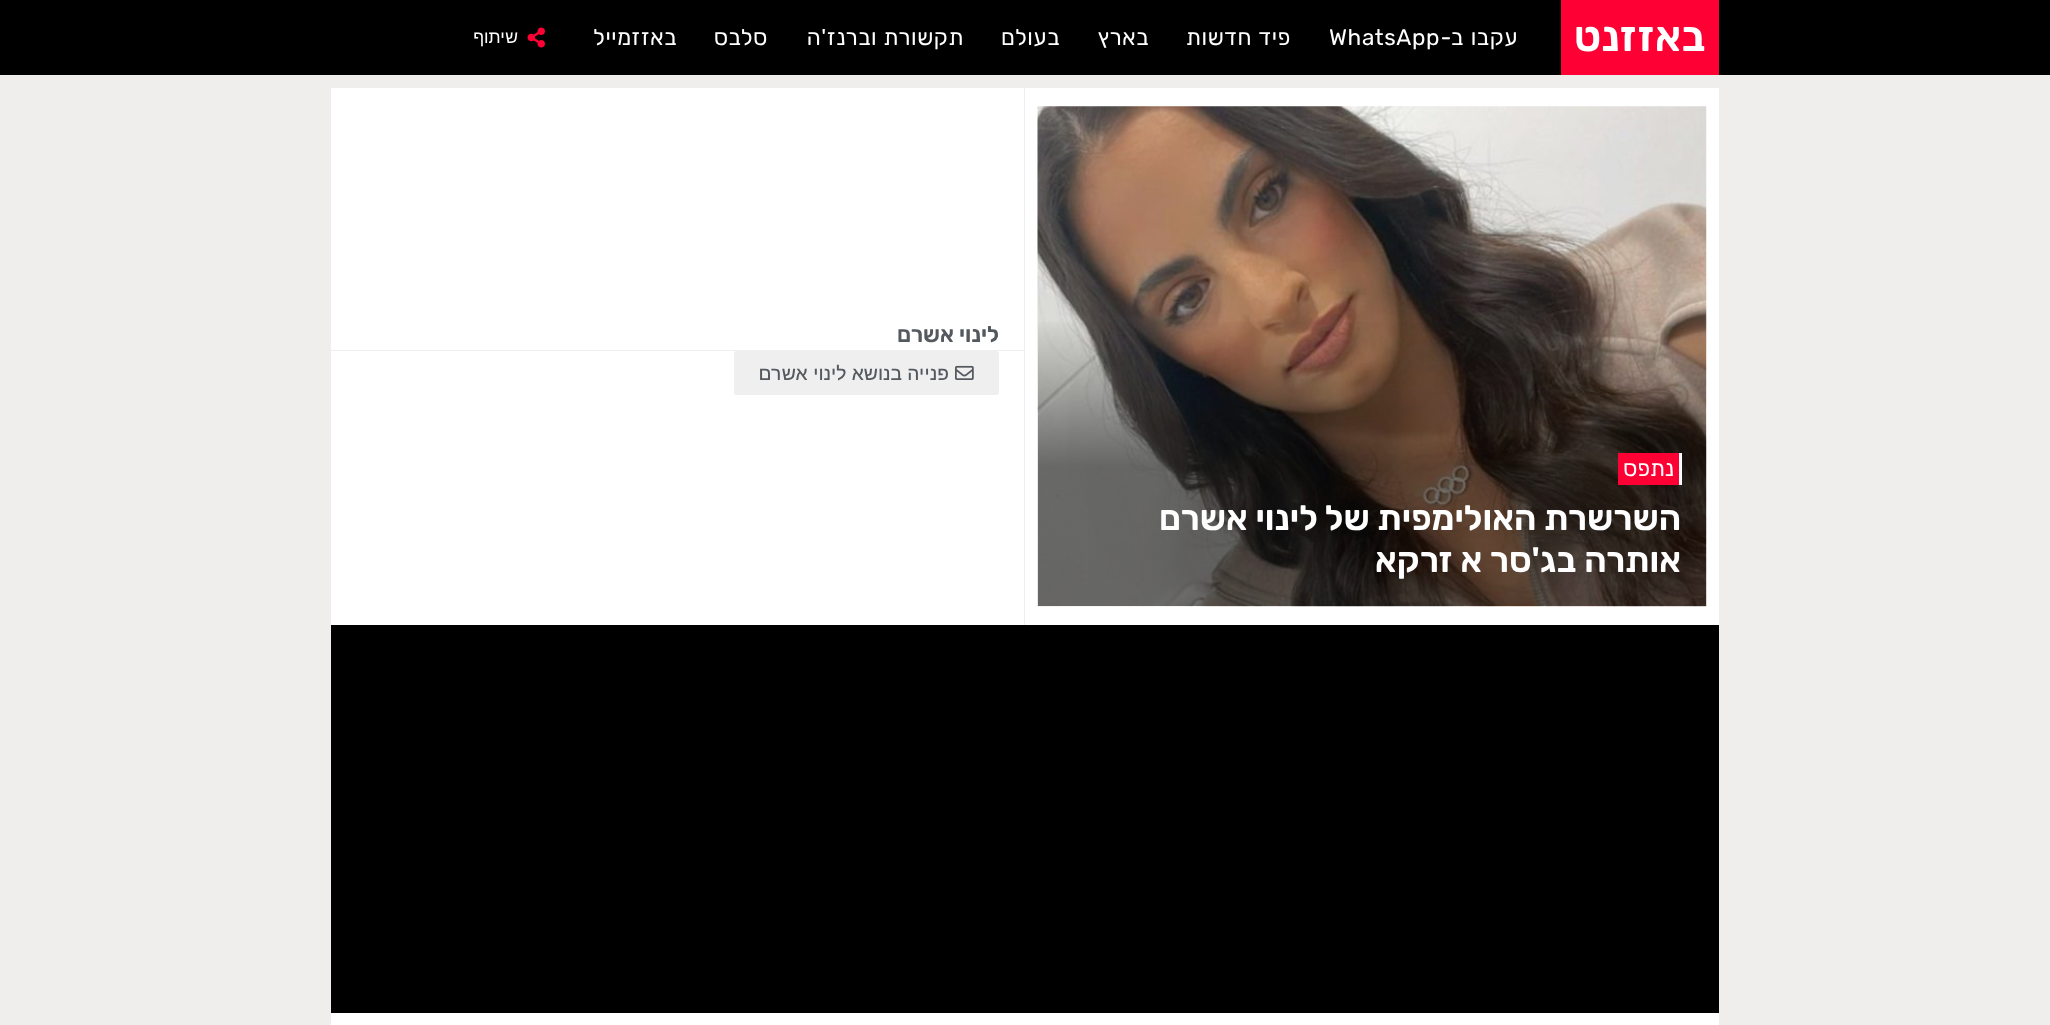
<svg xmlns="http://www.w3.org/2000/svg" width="2050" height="1025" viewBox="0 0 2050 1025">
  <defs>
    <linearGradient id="g1" gradientUnits="userSpaceOnUse" x1="1372" y1="106" x2="1372" y2="606"><stop offset="0.42" stop-color="#000000" stop-opacity="0"/><stop offset="0.72" stop-color="#000000" stop-opacity="0.51"/></linearGradient>
  </defs>
  <rect width="100%" height="100%" fill="#f0eded"/>
  <rect x="0" y="0" width="2050" height="75" fill="#000000"/>
  <rect x="1561" y="0" width="158" height="75" fill="#fe0034"/>
  <text x="1706" y="51" font-family="Rubik" font-size="42" font-weight="600" letter-spacing="0.6" direction="rtl" fill="#ffffff">באזזנט</text>
  <text x="1518" y="45" word-spacing="1" font-family="Rubik" font-size="22.5" letter-spacing="0.6" direction="rtl" fill="#ffffff">עקבו ב-</text>
  <text x="1329" y="45" font-family="Rubik" font-size="22.5" letter-spacing="0.6" fill="#ffffff">WhatsApp</text>
  <text x="1291" y="45" word-spacing="1" font-family="Rubik" font-size="22.5" letter-spacing="0.6" direction="rtl" fill="#ffffff">פיד חדשות</text>
  <text x="1149" y="45" font-family="Rubik" font-size="22.5" letter-spacing="0.6" direction="rtl" fill="#ffffff">בארץ</text>
  <text x="1060" y="45" font-family="Rubik" font-size="22.5" letter-spacing="0.6" direction="rtl" fill="#ffffff">בעולם</text>
  <text x="964" y="45" font-family="Rubik" font-size="22.5" letter-spacing="0.6" direction="rtl" fill="#ffffff">תקשורת וברנז'ה</text>
  <text x="768" y="45" font-family="Rubik" font-size="22.5" letter-spacing="0.6" direction="rtl" fill="#ffffff">סלבס</text>
  <text x="677" y="45" font-family="Rubik" font-size="22.5" letter-spacing="0.6" direction="rtl" fill="#ffffff">באזזמייל</text>
  <image x="527" y="27" width="18" height="21" href="img1.png"/>
  <text x="518" y="43" font-family="Arimo" font-size="17.5" direction="rtl" fill="#ffffff">שיתוף</text>
  <rect x="331" y="88" width="1388" height="537" fill="#ffffff"/>
  <rect x="1024" y="88" width="1" height="537" fill="#efefef"/>
  <rect x="331" y="350" width="693" height="1" fill="#efefef"/>
  <text x="999" y="342" font-family="Rubik" font-size="22.5" font-weight="600" direction="rtl" fill="#54595f">לינוי אשרם</text>
  <rect x="734" y="351" width="265" height="44" rx="2.5" fill="#efefef"/>
  <image x="955" y="365" width="19" height="15" href="img2.png"/>
  <text x="949" y="380" font-family="Arimo" font-size="18.75" font-weight="500" direction="rtl" fill="#54595f">פנייה בנושא לינוי אשרם</text>
  <image x="1037" y="106" width="670" height="501" href="img3.png"/>
  <rect x="1038" y="322" width="668" height="284" fill="url(#g1)"/>
  <rect x="1618" y="453" width="61" height="32" fill="#fe0034"/>
  <rect x="1679" y="453" width="3" height="32" fill="#ffffff"/>
  <text x="1674" y="476" font-family="Rubik" font-size="22.5" direction="rtl" fill="#ffffff">נתפס</text>
  <text x="1681" y="530" font-family="Rubik" font-size="35" font-weight="600" direction="rtl" fill="#ffffff">השרשרת האולימפית של לינוי אשרם</text>
  <text x="1681" y="572" word-spacing="0.5" font-family="Rubik" font-size="35" font-weight="600" direction="rtl" fill="#ffffff">אותרה בג'סר א זרקא</text>
  <rect x="331" y="625" width="1388" height="388" fill="#000000"/>
  <rect x="331" y="1013" width="1388" height="12" fill="#ffffff"/>
</svg>
